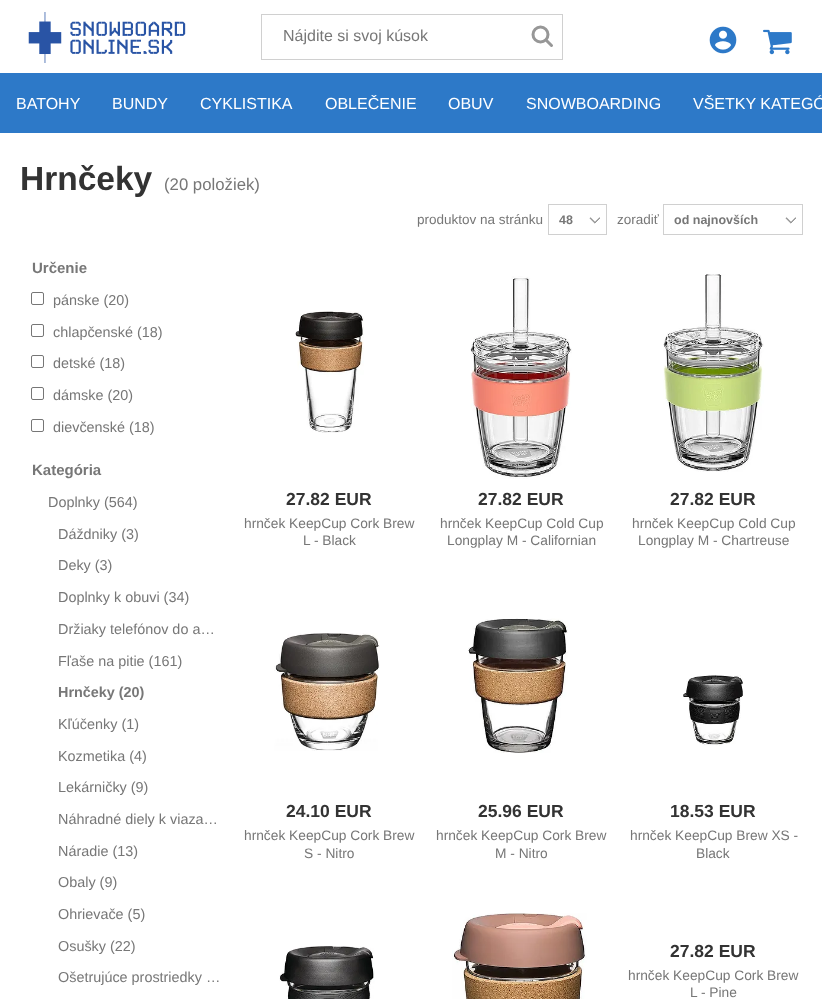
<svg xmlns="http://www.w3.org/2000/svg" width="822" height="999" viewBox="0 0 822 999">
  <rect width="100%" height="100%" fill="#ffffff"/>
  <image x="28" y="12" width="158" height="51" href="img1.png"/>
  <rect x="261.5" y="14.5" width="301" height="45" fill="none" stroke="#d0d0d0"/>
  <text x="283" y="41" font-family="Liberation Sans" font-size="16" fill="#777777">Nájdite si svoj kúsok</text>
  <circle cx="540.5" cy="34.5" r="7.5" fill="none" stroke="#979797" stroke-width="3"/>
  <path d="M546.5 40.5L551.5 45.5" fill="none" stroke="#979797" stroke-width="3" stroke-linecap="round"/>
  <image x="709" y="26" width="28" height="28" href="img2.png"/>
  <image x="763" y="29" width="29" height="26" href="img3.png"/>
  <rect x="0" y="73" width="822" height="60" fill="#2d79c8"/>
  <text x="16" y="109" font-family="Liberation Sans" font-size="16" fill="#ffffff">BATOHY</text>
  <text x="112" y="109" font-family="Liberation Sans" font-size="16" fill="#ffffff">BUNDY</text>
  <text x="200" y="109" font-family="Liberation Sans" font-size="16" fill="#ffffff">CYKLISTIKA</text>
  <text x="325" y="109" font-family="Liberation Sans" font-size="16" fill="#ffffff">OBLEČENIE</text>
  <text x="448" y="109" font-family="Liberation Sans" font-size="16" fill="#ffffff">OBUV</text>
  <text x="526" y="109" font-family="Liberation Sans" font-size="16" fill="#ffffff">SNOWBOARDING</text>
  <text x="693" y="109" font-family="Liberation Sans" font-size="16" fill="#ffffff">VŠETKY KATEGÓ</text>
  <text x="20" y="190" font-family="Liberation Sans" font-size="33.5" font-weight="bold" fill="#333333">Hrnčeky</text>
  <text x="164" y="190" font-family="Liberation Sans" font-size="16.75" fill="#777777">(20 položiek)</text>
  <text x="417" y="224" font-family="Liberation Sans" font-size="13.5" fill="#777777">produktov na stránku</text>
  <rect x="548.5" y="204.5" width="58" height="30" fill="none" stroke="#d0d0d0"/>
  <text x="559" y="224" font-family="Liberation Sans" font-size="12.5" font-weight="bold" fill="#777777">48</text>
  <image x="589" y="217" width="11" height="7" href="img4.png"/>
  <text x="617" y="224" font-family="Liberation Sans" font-size="13.5" fill="#777777">zoradiť</text>
  <rect x="663.5" y="204.5" width="139" height="30" fill="none" stroke="#d0d0d0"/>
  <text x="674" y="224" font-family="Liberation Sans" font-size="12.5" font-weight="bold" fill="#777777">od najnovších</text>
  <image x="785" y="217" width="11" height="7" href="img4.png"/>
  <text x="32" y="273" font-family="Liberation Sans" font-size="15" font-weight="bold" fill="#777777">Určenie</text>
  <rect x="31.5" y="292.5" width="12" height="12" rx="1.5" fill="none" stroke="#767676"/>
  <text x="53" y="305" font-family="Liberation Sans" font-size="14.4" fill="#777777">pánske (20)</text>
  <rect x="31.5" y="324.5" width="12" height="12" rx="1.5" fill="none" stroke="#767676"/>
  <text x="53" y="337" font-family="Liberation Sans" font-size="14.4" fill="#777777">chlapčenské (18)</text>
  <rect x="31.5" y="355.5" width="12" height="12" rx="1.5" fill="none" stroke="#767676"/>
  <text x="53" y="368" font-family="Liberation Sans" font-size="14.4" fill="#777777">detské (18)</text>
  <rect x="31.5" y="387.5" width="12" height="12" rx="1.5" fill="none" stroke="#767676"/>
  <text x="53" y="400" font-family="Liberation Sans" font-size="14.4" fill="#777777">dámske (20)</text>
  <rect x="31.5" y="419.5" width="12" height="12" rx="1.5" fill="none" stroke="#767676"/>
  <text x="53" y="432" font-family="Liberation Sans" font-size="14.4" fill="#777777">dievčenské (18)</text>
  <text x="32" y="475" font-family="Liberation Sans" font-size="15" font-weight="bold" fill="#777777">Kategória</text>
  <text x="48" y="507" font-family="Liberation Sans" font-size="14.4" fill="#777777">Doplnky (564)</text>
  <text x="58" y="539" font-family="Liberation Sans" font-size="14.4" fill="#777777">Dáždniky (3)</text>
  <text x="58" y="570" font-family="Liberation Sans" font-size="14.4" fill="#777777">Deky (3)</text>
  <text x="58" y="602" font-family="Liberation Sans" font-size="14.4" fill="#777777">Doplnky k obuvi (34)</text>
  <text x="58" y="634" font-family="Liberation Sans" font-size="14.4" fill="#777777">Držiaky telefónov do a…</text>
  <text x="58" y="666" font-family="Liberation Sans" font-size="14.4" fill="#777777">Fľaše na pitie (161)</text>
  <text x="58" y="697" font-family="Liberation Sans" font-size="14.4" font-weight="bold" fill="#777777">Hrnčeky (20)</text>
  <text x="58" y="729" font-family="Liberation Sans" font-size="14.4" fill="#777777">Kľúčenky (1)</text>
  <text x="58" y="761" font-family="Liberation Sans" font-size="14.4" fill="#777777">Kozmetika (4)</text>
  <text x="58" y="792" font-family="Liberation Sans" font-size="14.4" fill="#777777">Lekárničky (9)</text>
  <text x="58" y="824" font-family="Liberation Sans" font-size="14.4" fill="#777777">Náhradné diely k viaza…</text>
  <text x="58" y="856" font-family="Liberation Sans" font-size="14.4" fill="#777777">Náradie (13)</text>
  <text x="58" y="887" font-family="Liberation Sans" font-size="14.4" fill="#777777">Obaly (9)</text>
  <text x="58" y="919" font-family="Liberation Sans" font-size="14.4" fill="#777777">Ohrievače (5)</text>
  <text x="58" y="951" font-family="Liberation Sans" font-size="14.4" fill="#777777">Osušky (22)</text>
  <text x="58" y="982" font-family="Liberation Sans" font-size="14.4" fill="#777777">Ošetrujúce prostriedky …</text>
  <image x="295" y="311" width="69" height="122" href="img5.png"/>
  <text x="286" y="505" font-family="Liberation Sans" font-size="17.5" font-weight="bold" fill="#333333">27.82 EUR</text>
  <text x="244" y="528" font-family="Liberation Sans" font-size="13.75" fill="#777777">hrnček KeepCup Cork Brew</text>
  <text x="303" y="545" font-family="Liberation Sans" font-size="13.75" fill="#777777">L - Black</text>
  <image x="470" y="276" width="102" height="203" href="img6.png"/>
  <text x="478" y="505" font-family="Liberation Sans" font-size="17.5" font-weight="bold" fill="#333333">27.82 EUR</text>
  <text x="440" y="528" font-family="Liberation Sans" font-size="13.75" fill="#777777">hrnček KeepCup Cold Cup</text>
  <text x="447" y="545" font-family="Liberation Sans" font-size="13.75" fill="#777777">Longplay M - Californian</text>
  <image x="663" y="274" width="101" height="198" href="img7.png"/>
  <text x="670" y="505" font-family="Liberation Sans" font-size="17.5" font-weight="bold" fill="#333333">27.82 EUR</text>
  <text x="632" y="528" font-family="Liberation Sans" font-size="13.75" fill="#777777">hrnček KeepCup Cold Cup</text>
  <text x="638" y="545" font-family="Liberation Sans" font-size="13.75" fill="#777777">Longplay M - Chartreuse</text>
  <image x="274" y="633" width="106" height="118" href="img8.png"/>
  <text x="286" y="817" font-family="Liberation Sans" font-size="17.5" font-weight="bold" fill="#333333">24.10 EUR</text>
  <text x="244" y="840" font-family="Liberation Sans" font-size="13.75" fill="#777777">hrnček KeepCup Cork Brew</text>
  <text x="304" y="858" font-family="Liberation Sans" font-size="13.75" fill="#777777">S - Nitro</text>
  <image x="468" y="618" width="100" height="135" href="img9.png"/>
  <text x="478" y="817" font-family="Liberation Sans" font-size="17.5" font-weight="bold" fill="#333333">25.96 EUR</text>
  <text x="436" y="840" font-family="Liberation Sans" font-size="13.75" fill="#777777">hrnček KeepCup Cork Brew</text>
  <text x="495" y="858" font-family="Liberation Sans" font-size="13.75" fill="#777777">M - Nitro</text>
  <image x="683" y="675" width="60" height="71" href="img10.png"/>
  <text x="670" y="817" font-family="Liberation Sans" font-size="17.5" font-weight="bold" fill="#333333">18.53 EUR</text>
  <text x="630" y="840" font-family="Liberation Sans" font-size="13.75" fill="#777777">hrnček KeepCup Brew XS -</text>
  <text x="696" y="858" font-family="Liberation Sans" font-size="13.75" fill="#777777">Black</text>
  <image x="279" y="946" width="96" height="53" href="img11.png"/>
  <image x="452" y="913" width="135" height="86" href="img12.png"/>
  <text x="670" y="957" font-family="Liberation Sans" font-size="17.5" font-weight="bold" fill="#333333">27.82 EUR</text>
  <text x="628" y="980" font-family="Liberation Sans" font-size="13.75" fill="#777777">hrnček KeepCup Cork Brew</text>
  <text x="690" y="997" font-family="Liberation Sans" font-size="13.75" fill="#777777">L - Pine</text>
</svg>
